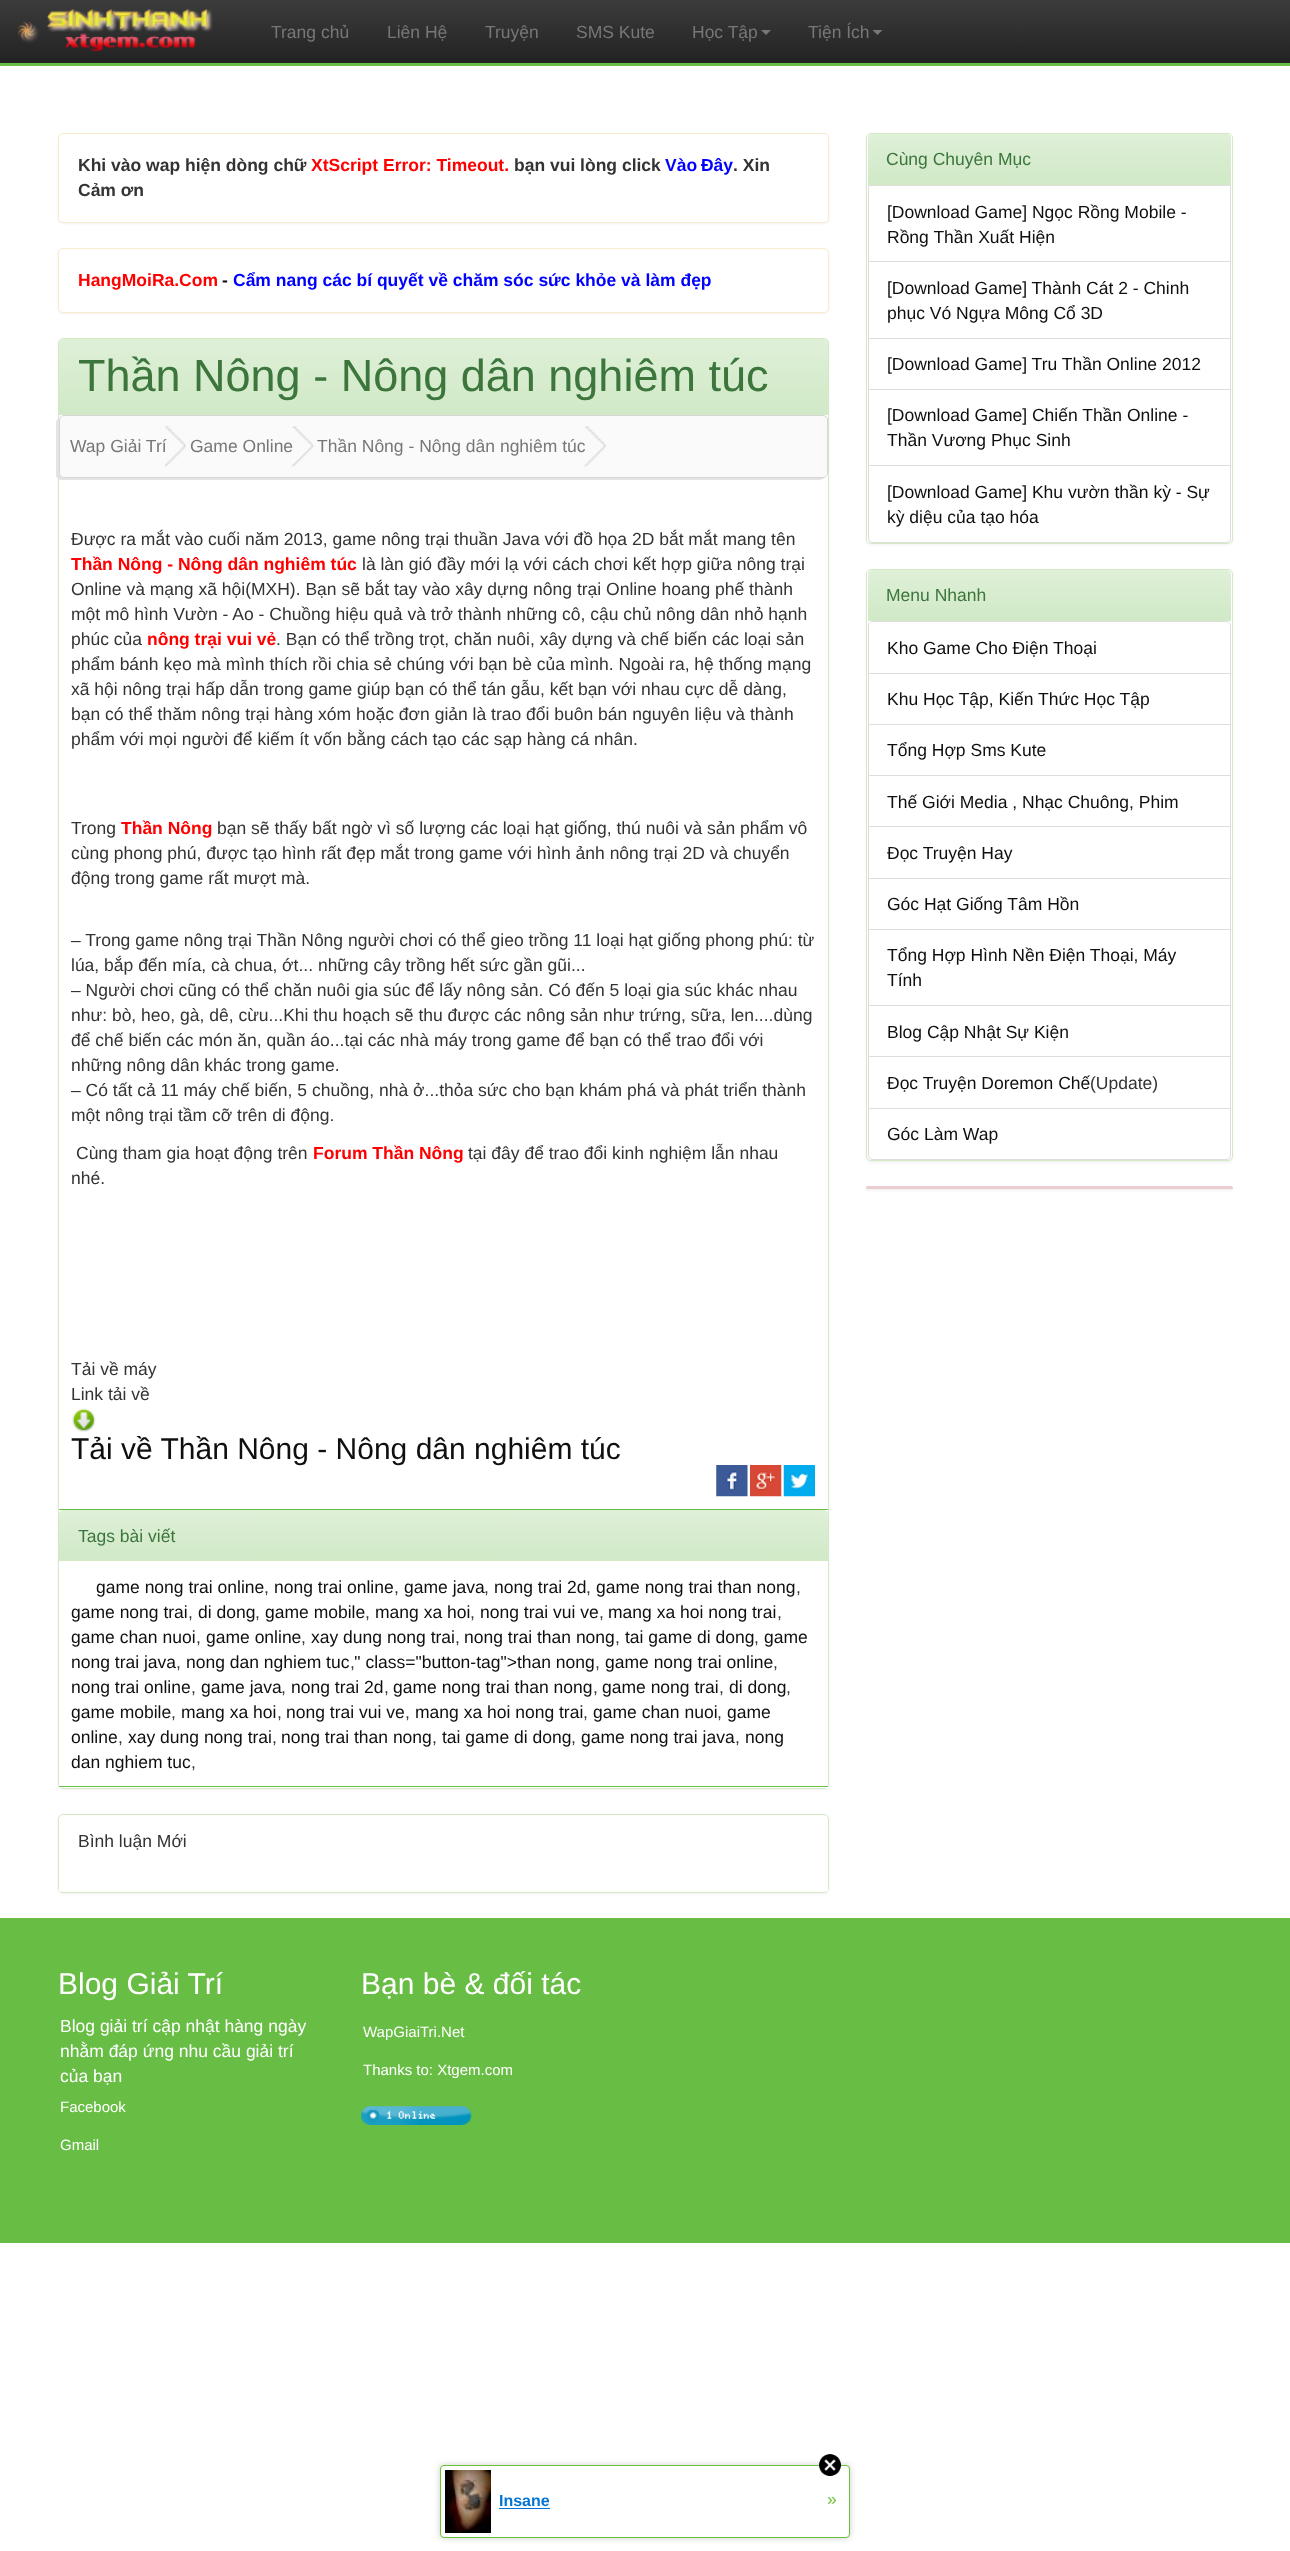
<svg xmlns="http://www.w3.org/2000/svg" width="1290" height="2551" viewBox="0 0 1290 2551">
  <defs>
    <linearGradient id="g1" gradientUnits="userSpaceOnUse" x1="645" y1="0" x2="645" y2="63"><stop offset="0" stop-color="#3c3c3c"/><stop offset="1" stop-color="#222222"/></linearGradient>
    <filter id="blur1" x="-50%" y="-200%" width="200%" height="500%"><feGaussianBlur stdDeviation="1"/></filter>
    <linearGradient id="g2" gradientUnits="userSpaceOnUse" x1="443" y1="339" x2="443" y2="414"><stop offset="0" stop-color="#dff0d8"/><stop offset="1" stop-color="#d0e9c6"/></linearGradient>
    <filter id="blur2" x="-50%" y="-200%" width="200%" height="500%"><feGaussianBlur stdDeviation="0.5"/></filter>
    <linearGradient id="g3" gradientUnits="userSpaceOnUse" x1="443" y1="1510" x2="443" y2="1560"><stop offset="0" stop-color="#dff0d8"/><stop offset="1" stop-color="#d0e9c6"/></linearGradient>
    <linearGradient id="g4" gradientUnits="userSpaceOnUse" x1="1049" y1="134" x2="1049" y2="184"><stop offset="0" stop-color="#dff0d8"/><stop offset="1" stop-color="#d0e9c6"/></linearGradient>
    <linearGradient id="g5" gradientUnits="userSpaceOnUse" x1="1049" y1="570" x2="1049" y2="620"><stop offset="0" stop-color="#dff0d8"/><stop offset="1" stop-color="#d0e9c6"/></linearGradient>
    <filter id="blur3" x="-50%" y="-200%" width="200%" height="500%"><feGaussianBlur stdDeviation="3"/></filter>
  </defs>
  <rect width="100%" height="100%" fill="#ffffff"/>
  <rect x="0" y="0" width="1290" height="63" fill="url(#g1)"/>
  <rect x="0" y="63" width="1290" height="3" fill="#68bd45"/>
  <image x="17" y="9" width="196" height="43" href="img1.png"/>
  <text x="271" y="38" font-family="Liberation Sans" font-size="17.5" fill="#777777">Trang chủ</text>
  <text x="387" y="38" font-family="Liberation Sans" font-size="17.5" fill="#777777">Liên Hệ</text>
  <text x="485" y="38" font-family="Liberation Sans" font-size="17.5" fill="#777777">Truyện</text>
  <text x="576" y="38" font-family="Liberation Sans" font-size="17.5" fill="#777777">SMS Kute</text>
  <text x="692" y="38" font-family="Liberation Sans" font-size="17.5" fill="#777777">Học Tập</text>
  <path d="M761 30H771L766 35Z" fill="#777777"/>
  <text x="808" y="38" font-family="Liberation Sans" font-size="17.5" fill="#777777">Tiện Ích</text>
  <path d="M872.5 30H882.5L877.5 35Z" fill="#777777"/>
  <rect x="58" y="134" width="771" height="90" rx="5" fill="#000000" fill-opacity="0.05" filter="url(#blur1)"/>
  <rect x="58.5" y="133.5" width="770" height="89" rx="4.5" fill="#ffffff" stroke="#faebcc"/>
  <text x="78" y="171" font-family="Liberation Sans" font-size="17.5" font-weight="bold" fill="#333333">Khi vào wap hiện dòng chữ</text>
  <text x="311" y="171" font-family="Liberation Sans" font-size="17.5" font-weight="bold" fill="#ff0000">XtScript Error: Timeout.</text>
  <text x="514" y="171" font-family="Liberation Sans" font-size="17.5" font-weight="bold" fill="#333333">bạn vui lòng click</text>
  <text x="665" y="171" word-spacing="-1" font-family="Liberation Sans" font-size="17.5" font-weight="bold" fill="#0000ff">Vào Đây</text>
  <text x="733" y="171" font-family="Liberation Sans" font-size="17.5" font-weight="bold" fill="#333333">. Xin</text>
  <text x="78" y="196" font-family="Liberation Sans" font-size="17.5" font-weight="bold" fill="#333333">Cảm ơn</text>
  <rect x="58" y="249" width="771" height="65" rx="5" fill="#000000" fill-opacity="0.05" filter="url(#blur1)"/>
  <rect x="58.5" y="248.5" width="770" height="64" rx="4.5" fill="#ffffff" stroke="#faebcc"/>
  <text x="78" y="286" font-family="Liberation Sans" font-size="17.5" font-weight="bold" fill="#ff0000">HangMoiRa.Com</text>
  <text x="222" y="286" font-family="Liberation Sans" font-size="17.5" font-weight="bold" fill="#0f0f0f">-</text>
  <text x="233" y="286" font-family="Liberation Sans" font-size="17.5" font-weight="bold" fill="#0000ff">Cẩm nang các bí quyết về chăm sóc sức khỏe và làm đẹp</text>
  <rect x="58" y="339" width="771" height="1451" rx="5" fill="#000000" fill-opacity="0.05" filter="url(#blur1)"/>
  <rect x="58.5" y="338.5" width="770" height="1450" rx="4.5" fill="#ffffff" stroke="#d6e9c6"/>
  <path d="M63 339H824C826 339 828 341 828 343V414H59V343C59 341 61 339 63 339Z" fill="url(#g2)"/>
  <rect x="59" y="414" width="769" height="1" fill="#d6e9c6"/>
  <text x="78" y="391" font-family="Liberation Sans" font-size="45" fill="#3c763d">Thần Nông - Nông dân nghiêm túc</text>
  <rect x="56" y="418" width="769" height="62" rx="5" fill="#e4e4e4" filter="url(#blur2)"/>
  <rect x="59.5" y="415.5" width="768" height="62" rx="4.5" fill="#fafafa" stroke="#d6d6d6"/>
  <image x="164" y="426" width="22" height="41" href="img2.png"/>
  <text x="70" y="452" font-family="Liberation Sans" font-size="17.5" fill="#777777">Wap Giải Trí</text>
  <image x="291" y="426" width="23" height="41" href="img3.png"/>
  <text x="190" y="452" font-family="Liberation Sans" font-size="17.5" fill="#777777">Game Online</text>
  <image x="584" y="426" width="22" height="41" href="img4.png"/>
  <text x="317" y="452" font-family="Liberation Sans" font-size="17.5" fill="#777777">Thần Nông - Nông dân nghiêm túc</text>
  <rect x="59" y="1509" width="769" height="1" fill="#68bd45"/>
  <text x="71" y="545" font-family="Liberation Sans" font-size="17.5" fill="#333333">Được ra mắt vào cuối năm 2013, game nông trại thuần Java với đồ họa 2D bắt mắt mang tên</text>
  <text x="71" y="570" font-family="Liberation Sans" font-size="17.5" font-weight="bold" fill="#ff0000">Thần Nông - Nông dân nghiêm túc</text>
  <text x="362" y="570" font-family="Liberation Sans" font-size="17.5" fill="#333333">là làn gió đầy mới lạ với cách chơi kết hợp giữa nông trại</text>
  <text x="71" y="595" font-family="Liberation Sans" font-size="17.5" fill="#333333">Online và mạng xã hội(MXH). Bạn sẽ bắt tay vào xây dựng nông trại Online hoang phế thành</text>
  <text x="71" y="620" font-family="Liberation Sans" font-size="17.5" fill="#333333">một mô hình Vườn - Ao - Chuồng hiệu quả và trở thành những cô, cậu chủ nông dân nhỏ hạnh</text>
  <text x="71" y="645" font-family="Liberation Sans" font-size="17.5" fill="#333333">phúc của</text>
  <text x="147" y="645" font-family="Liberation Sans" font-size="17.5" font-weight="bold" fill="#ff0000">nông trại vui vẻ</text>
  <text x="276" y="645" font-family="Liberation Sans" font-size="17.5" fill="#333333">. Bạn có thể trồng trọt, chăn nuôi, xây dựng và chế biến các loại sản</text>
  <text x="71" y="670" font-family="Liberation Sans" font-size="17.5" fill="#333333">phẩm bánh kẹo mà mình thích rồi chia sẻ chúng với bạn bè của mình. Ngoài ra, hệ thống mạng</text>
  <text x="71" y="695" font-family="Liberation Sans" font-size="17.5" fill="#333333">xã hội nông trại hấp dẫn trong game giúp bạn có thể tán gẫu, kết bạn với nhau cực dễ dàng,</text>
  <text x="71" y="720" font-family="Liberation Sans" font-size="17.5" fill="#333333">bạn có thể thăm nông trại hàng xóm hoặc đơn giản là trao đổi buôn bán nguyên liệu và thành</text>
  <text x="71" y="745" font-family="Liberation Sans" font-size="17.5" fill="#333333">phẩm với mọi người để kiếm ít vốn bằng cách tạo các sạp hàng cá nhân.</text>
  <text x="71" y="834" font-family="Liberation Sans" font-size="17.5" fill="#333333">Trong</text>
  <text x="121" y="834" font-family="Liberation Sans" font-size="17.5" font-weight="bold" fill="#ff0000">Thần Nông</text>
  <text x="217" y="834" font-family="Liberation Sans" font-size="17.5" fill="#333333">bạn sẽ thấy bất ngờ vì số lượng các loại hạt giống, thú nuôi và sản phẩm vô</text>
  <text x="71" y="859" font-family="Liberation Sans" font-size="17.5" fill="#333333">cùng phong phú, được tạo hình rất đẹp mắt trong game với hình ảnh nông trại 2D và chuyển</text>
  <text x="71" y="884" font-family="Liberation Sans" font-size="17.5" fill="#333333">động trong game rất mượt mà.</text>
  <text x="71" y="946" font-family="Liberation Sans" font-size="17.5" fill="#333333">– Trong game nông trại Thần Nông người chơi có thể gieo trồng 11 loại hạt giống phong phú: từ</text>
  <text x="71" y="971" font-family="Liberation Sans" font-size="17.5" fill="#333333">lúa, bắp đến mía, cà chua, ớt... những cây trồng hết sức gần gũi...</text>
  <text x="71" y="996" font-family="Liberation Sans" font-size="17.5" fill="#333333">– Người chơi cũng có thể chăn nuôi gia súc để lấy nông sản. Có đến 5 loại gia súc khác nhau</text>
  <text x="71" y="1021" font-family="Liberation Sans" font-size="17.5" fill="#333333">như: bò, heo, gà, dê, cừu...Khi thu hoạch sẽ thu được các nông sản như trứng, sữa, len....dùng</text>
  <text x="71" y="1046" font-family="Liberation Sans" font-size="17.5" fill="#333333">để chế biến các món ăn, quần áo...tại các nhà máy trong game để bạn có thể trao đổi với</text>
  <text x="71" y="1071" font-family="Liberation Sans" font-size="17.5" fill="#333333">những nông dân khác trong game.</text>
  <text x="71" y="1096" font-family="Liberation Sans" font-size="17.5" fill="#333333">– Có tất cả 11 máy chế biến, 5 chuồng, nhà ở...thỏa sức cho bạn khám phá và phát triển thành</text>
  <text x="71" y="1121" font-family="Liberation Sans" font-size="17.5" fill="#333333">một nông trại tầm cỡ trên di động.</text>
  <text x="76" y="1159" font-family="Liberation Sans" font-size="17.5" fill="#333333">Cùng tham gia hoạt động trên</text>
  <text x="313" y="1159" font-family="Liberation Sans" font-size="17.5" font-weight="bold" fill="#ff0000">Forum Thần Nông</text>
  <text x="468" y="1159" font-family="Liberation Sans" font-size="17.5" fill="#333333">tại đây để trao đổi kinh nghiệm lẫn nhau</text>
  <text x="71" y="1184" font-family="Liberation Sans" font-size="17.5" fill="#333333">nhé.</text>
  <text x="71" y="1375" font-family="Liberation Sans" font-size="17.5" fill="#333333">Tải về máy</text>
  <text x="71" y="1400" font-family="Liberation Sans" font-size="17.5" fill="#333333">Link tải về</text>
  <image x="72" y="1408" width="24" height="24" href="img5.png"/>
  <text x="71" y="1459" font-family="Liberation Sans" font-size="30" fill="#0f0f0f">Tải về Thần Nông - Nông dân nghiêm túc</text>
  <image x="716" y="1465" width="32" height="32" href="img6.png"/>
  <image x="750" y="1465" width="32" height="32" href="img7.png"/>
  <image x="783" y="1465" width="32" height="32" href="img8.png"/>
  <path d="M63 1510H824C826 1510 828 1512 828 1514V1560H59V1514C59 1512 61 1510 63 1510Z" fill="url(#g3)"/>
  <rect x="59" y="1560" width="769" height="1" fill="#d6e9c6"/>
  <text x="78" y="1542" font-family="Liberation Sans" font-size="17.5" fill="#3c763d">Tags bài viết</text>
  <rect x="59" y="1784" width="769" height="4" fill="#ffffff"/>
  <rect x="59" y="1786" width="769" height="1" fill="#68bd45"/>
  <text x="96" y="1593" font-family="Liberation Sans" font-size="17.5" fill="#0f0f0f">game nong trai online</text>
  <text x="264" y="1593" font-family="Liberation Sans" font-size="17.5" fill="#333333">,</text>
  <text x="274" y="1593" font-family="Liberation Sans" font-size="17.5" fill="#0f0f0f">nong trai online</text>
  <text x="394" y="1593" font-family="Liberation Sans" font-size="17.5" fill="#333333">,</text>
  <text x="404" y="1593" font-family="Liberation Sans" font-size="17.5" fill="#0f0f0f">game java</text>
  <text x="484" y="1593" font-family="Liberation Sans" font-size="17.5" fill="#333333">,</text>
  <text x="494" y="1593" font-family="Liberation Sans" font-size="17.5" fill="#0f0f0f">nong trai 2d</text>
  <text x="586" y="1593" font-family="Liberation Sans" font-size="17.5" fill="#333333">,</text>
  <text x="596" y="1593" font-family="Liberation Sans" font-size="17.5" fill="#0f0f0f">game nong trai than nong</text>
  <text x="796" y="1593" font-family="Liberation Sans" font-size="17.5" fill="#333333">,</text>
  <text x="71" y="1618" font-family="Liberation Sans" font-size="17.5" fill="#0f0f0f">game nong trai</text>
  <text x="188" y="1618" font-family="Liberation Sans" font-size="17.5" fill="#333333">,</text>
  <text x="198" y="1618" font-family="Liberation Sans" font-size="17.5" fill="#0f0f0f">di dong</text>
  <text x="255" y="1618" font-family="Liberation Sans" font-size="17.5" fill="#333333">,</text>
  <text x="265" y="1618" font-family="Liberation Sans" font-size="17.5" fill="#0f0f0f">game mobile</text>
  <text x="365" y="1618" font-family="Liberation Sans" font-size="17.5" fill="#333333">,</text>
  <text x="375" y="1618" font-family="Liberation Sans" font-size="17.5" fill="#0f0f0f">mang xa hoi</text>
  <text x="470" y="1618" font-family="Liberation Sans" font-size="17.5" fill="#333333">,</text>
  <text x="480" y="1618" font-family="Liberation Sans" font-size="17.5" fill="#0f0f0f">nong trai vui ve</text>
  <text x="599" y="1618" font-family="Liberation Sans" font-size="17.5" fill="#333333">,</text>
  <text x="608" y="1618" font-family="Liberation Sans" font-size="17.5" fill="#0f0f0f">mang xa hoi nong trai</text>
  <text x="777" y="1618" font-family="Liberation Sans" font-size="17.5" fill="#333333">,</text>
  <text x="71" y="1643" font-family="Liberation Sans" font-size="17.5" fill="#0f0f0f">game chan nuoi</text>
  <text x="196" y="1643" font-family="Liberation Sans" font-size="17.5" fill="#333333">,</text>
  <text x="206" y="1643" font-family="Liberation Sans" font-size="17.5" fill="#0f0f0f">game online</text>
  <text x="301" y="1643" font-family="Liberation Sans" font-size="17.5" fill="#333333">,</text>
  <text x="311" y="1643" font-family="Liberation Sans" font-size="17.5" fill="#0f0f0f">xay dung nong trai</text>
  <text x="455" y="1643" font-family="Liberation Sans" font-size="17.5" fill="#333333">,</text>
  <text x="464" y="1643" font-family="Liberation Sans" font-size="17.5" fill="#0f0f0f">nong trai than nong</text>
  <text x="615" y="1643" font-family="Liberation Sans" font-size="17.5" fill="#333333">,</text>
  <text x="625" y="1643" font-family="Liberation Sans" font-size="17.5" fill="#0f0f0f">tai game di dong</text>
  <text x="754" y="1643" font-family="Liberation Sans" font-size="17.5" fill="#333333">,</text>
  <text x="764" y="1643" font-family="Liberation Sans" font-size="17.5" fill="#0f0f0f">game</text>
  <text x="71" y="1668" font-family="Liberation Sans" font-size="17.5" fill="#0f0f0f">nong trai java</text>
  <text x="176" y="1668" font-family="Liberation Sans" font-size="17.5" fill="#333333">,</text>
  <text x="186" y="1668" font-family="Liberation Sans" font-size="17.5" fill="#0f0f0f">nong dan nghiem tuc " class="button-tag"&gt;than nong</text>
  <text x="605" y="1668" font-family="Liberation Sans" font-size="17.5" fill="#0f0f0f">game nong trai online</text>
  <text x="350" y="1668" font-family="Liberation Sans" font-size="17.5" fill="#333333">,</text>
  <text x="595" y="1668" font-family="Liberation Sans" font-size="17.5" fill="#333333">,</text>
  <text x="773" y="1668" font-family="Liberation Sans" font-size="17.5" fill="#333333">,</text>
  <text x="71" y="1693" font-family="Liberation Sans" font-size="17.5" fill="#0f0f0f">nong trai online</text>
  <text x="191" y="1693" font-family="Liberation Sans" font-size="17.5" fill="#333333">,</text>
  <text x="201" y="1693" font-family="Liberation Sans" font-size="17.5" fill="#0f0f0f">game java</text>
  <text x="281" y="1693" font-family="Liberation Sans" font-size="17.5" fill="#333333">,</text>
  <text x="291" y="1693" font-family="Liberation Sans" font-size="17.5" fill="#0f0f0f">nong trai 2d</text>
  <text x="384" y="1693" font-family="Liberation Sans" font-size="17.5" fill="#333333">,</text>
  <text x="393" y="1693" font-family="Liberation Sans" font-size="17.5" fill="#0f0f0f">game nong trai than nong</text>
  <text x="593" y="1693" font-family="Liberation Sans" font-size="17.5" fill="#333333">,</text>
  <text x="602" y="1693" font-family="Liberation Sans" font-size="17.5" fill="#0f0f0f">game nong trai</text>
  <text x="719" y="1693" font-family="Liberation Sans" font-size="17.5" fill="#333333">,</text>
  <text x="729" y="1693" font-family="Liberation Sans" font-size="17.5" fill="#0f0f0f">di dong</text>
  <text x="786" y="1693" font-family="Liberation Sans" font-size="17.5" fill="#333333">,</text>
  <text x="71" y="1718" font-family="Liberation Sans" font-size="17.5" fill="#0f0f0f">game mobile</text>
  <text x="171" y="1718" font-family="Liberation Sans" font-size="17.5" fill="#333333">,</text>
  <text x="181" y="1718" font-family="Liberation Sans" font-size="17.5" fill="#0f0f0f">mang xa hoi</text>
  <text x="277" y="1718" font-family="Liberation Sans" font-size="17.5" fill="#333333">,</text>
  <text x="286" y="1718" font-family="Liberation Sans" font-size="17.5" fill="#0f0f0f">nong trai vui ve</text>
  <text x="405" y="1718" font-family="Liberation Sans" font-size="17.5" fill="#333333">,</text>
  <text x="415" y="1718" font-family="Liberation Sans" font-size="17.5" fill="#0f0f0f">mang xa hoi nong trai</text>
  <text x="583" y="1718" font-family="Liberation Sans" font-size="17.5" fill="#333333">,</text>
  <text x="593" y="1718" font-family="Liberation Sans" font-size="17.5" fill="#0f0f0f">game chan nuoi</text>
  <text x="717" y="1718" font-family="Liberation Sans" font-size="17.5" fill="#333333">,</text>
  <text x="727" y="1718" font-family="Liberation Sans" font-size="17.5" fill="#0f0f0f">game</text>
  <text x="71" y="1743" font-family="Liberation Sans" font-size="17.5" fill="#0f0f0f">online</text>
  <text x="118" y="1743" font-family="Liberation Sans" font-size="17.5" fill="#333333">,</text>
  <text x="128" y="1743" font-family="Liberation Sans" font-size="17.5" fill="#0f0f0f">xay dung nong trai</text>
  <text x="272" y="1743" font-family="Liberation Sans" font-size="17.5" fill="#333333">,</text>
  <text x="281" y="1743" font-family="Liberation Sans" font-size="17.5" fill="#0f0f0f">nong trai than nong</text>
  <text x="432" y="1743" font-family="Liberation Sans" font-size="17.5" fill="#333333">,</text>
  <text x="442" y="1743" font-family="Liberation Sans" font-size="17.5" fill="#0f0f0f">tai game di dong</text>
  <text x="571" y="1743" font-family="Liberation Sans" font-size="17.5" fill="#333333">,</text>
  <text x="581" y="1743" font-family="Liberation Sans" font-size="17.5" fill="#0f0f0f">game nong trai java</text>
  <text x="735" y="1743" font-family="Liberation Sans" font-size="17.5" fill="#333333">,</text>
  <text x="745" y="1743" font-family="Liberation Sans" font-size="17.5" fill="#0f0f0f">nong</text>
  <text x="71" y="1768" font-family="Liberation Sans" font-size="17.5" fill="#0f0f0f">dan nghiem tuc</text>
  <text x="191" y="1768" font-family="Liberation Sans" font-size="17.5" fill="#333333">,</text>
  <rect x="58" y="1815" width="771" height="79" rx="5" fill="#000000" fill-opacity="0.05" filter="url(#blur1)"/>
  <rect x="58.5" y="1814.5" width="770" height="78" rx="4.5" fill="#ffffff" stroke="#d6e9c6"/>
  <text x="78" y="1847" font-family="Liberation Sans" font-size="17.5" fill="#333333">Bình luận Mới</text>
  <rect x="59" y="1888" width="769" height="3" fill="#ffffff"/>
  <rect x="866" y="134" width="367" height="411" rx="5" fill="#000000" fill-opacity="0.05" filter="url(#blur1)"/>
  <rect x="866.5" y="133.5" width="366" height="410" rx="4.5" fill="#ffffff" stroke="#d6e9c6"/>
  <path d="M872 134H1227C1229 134 1231 136 1231 138V184H868V138C868 136 870 134 872 134Z" fill="url(#g4)"/>
  <rect x="868" y="184" width="363" height="1" fill="#d6e9c6"/>
  <text x="886" y="165" font-family="Liberation Sans" font-size="17.5" fill="#3c763d">Cùng Chuyên Mục</text>
  <rect x="868.5" y="185.5" width="362" height="77" fill="none" stroke="#dddddd"/>
  <text x="887" y="218" font-family="Liberation Sans" font-size="17.5" fill="#0f0f0f">[Download Game] Ngọc Rồng Mobile -</text>
  <text x="887" y="243" font-family="Liberation Sans" font-size="17.5" fill="#0f0f0f">Rồng Thần Xuất Hiện</text>
  <rect x="869" y="262" width="361" height="1" fill="#ffffff"/>
  <rect x="868.5" y="261.5" width="362" height="77" fill="none" stroke="#dddddd"/>
  <text x="887" y="294" font-family="Liberation Sans" font-size="17.5" fill="#0f0f0f">[Download Game] Thành Cát 2 - Chinh</text>
  <text x="887" y="319" font-family="Liberation Sans" font-size="17.5" fill="#0f0f0f">phục Vó Ngựa Mông Cổ 3D</text>
  <rect x="868.5" y="338.5" width="362" height="51" fill="none" stroke="#dddddd"/>
  <text x="887" y="370" font-family="Liberation Sans" font-size="17.5" fill="#0f0f0f">[Download Game] Tru Thần Online 2012</text>
  <rect x="868.5" y="389.5" width="362" height="76" fill="none" stroke="#dddddd"/>
  <text x="887" y="421" font-family="Liberation Sans" font-size="17.5" fill="#0f0f0f">[Download Game] Chiến Thần Online -</text>
  <text x="887" y="446" font-family="Liberation Sans" font-size="17.5" fill="#0f0f0f">Thần Vương Phục Sinh</text>
  <path d="M868.5 465.5H1230.5V538C1230.5 540.5 1228.5 542.5 1226 542.5H873C870.5 542.5 868.5 540.5 868.5 538Z" fill="#ffffff" stroke="#dddddd"/>
  <text x="887" y="498" font-family="Liberation Sans" font-size="17.5" fill="#0f0f0f">[Download Game] Khu vườn thần kỳ - Sự</text>
  <text x="887" y="523" font-family="Liberation Sans" font-size="17.5" fill="#0f0f0f">kỳ diệu của tạo hóa</text>
  <rect x="866" y="570" width="367" height="593" rx="5" fill="#000000" fill-opacity="0.05" filter="url(#blur1)"/>
  <rect x="866.5" y="569.5" width="366" height="591" rx="4.5" fill="#ffffff" stroke="#d6e9c6"/>
  <path d="M872 570H1227C1229 570 1231 572 1231 574V620H868V574C868 572 870 570 872 570Z" fill="url(#g5)"/>
  <rect x="868" y="620" width="363" height="1" fill="#d6e9c6"/>
  <text x="886" y="601" font-family="Liberation Sans" font-size="17.5" fill="#3c763d">Menu Nhanh</text>
  <path d="M873 621.5H1226C1228.5 621.5 1230.5 623.5 1230.5 626V673.5H868.5V626C868.5 623.5 870.5 621.5 873 621.5Z" fill="none" stroke="#dddddd"/>
  <text x="887" y="654" font-family="Liberation Sans" font-size="17.5" fill="#0f0f0f">Kho Game Cho Điện Thoại</text>
  <rect x="868.5" y="673.5" width="362" height="51" fill="none" stroke="#dddddd"/>
  <text x="887" y="705" font-family="Liberation Sans" font-size="17.5" fill="#0f0f0f">Khu Học Tập, Kiến Thức Học Tập</text>
  <rect x="868.5" y="724.5" width="362" height="51" fill="none" stroke="#dddddd"/>
  <text x="887" y="756" font-family="Liberation Sans" font-size="17.5" fill="#0f0f0f">Tổng Hợp Sms Kute</text>
  <rect x="868.5" y="775.5" width="362" height="52" fill="none" stroke="#dddddd"/>
  <text x="887" y="808" font-family="Liberation Sans" font-size="17.5" fill="#0f0f0f">Thế Giới Media , Nhạc Chuông, Phim</text>
  <rect x="869" y="827" width="361" height="1" fill="#ffffff"/>
  <rect x="868.5" y="826.5" width="362" height="52" fill="none" stroke="#dddddd"/>
  <text x="887" y="859" font-family="Liberation Sans" font-size="17.5" fill="#0f0f0f">Đọc Truyện Hay</text>
  <rect x="868.5" y="878.5" width="362" height="51" fill="none" stroke="#dddddd"/>
  <text x="887" y="910" font-family="Liberation Sans" font-size="17.5" fill="#0f0f0f">Góc Hạt Giống Tâm Hồn</text>
  <rect x="868.5" y="929.5" width="362" height="76" fill="none" stroke="#dddddd"/>
  <text x="887" y="961" font-family="Liberation Sans" font-size="17.5" fill="#0f0f0f">Tổng Hợp Hình Nền Điện Thoại, Máy</text>
  <text x="887" y="986" font-family="Liberation Sans" font-size="17.5" fill="#0f0f0f">Tính</text>
  <rect x="868.5" y="1005.5" width="362" height="52" fill="none" stroke="#dddddd"/>
  <text x="887" y="1038" font-family="Liberation Sans" font-size="17.5" fill="#0f0f0f">Blog Cập Nhật Sự Kiện</text>
  <rect x="869" y="1057" width="361" height="1" fill="#ffffff"/>
  <rect x="868.5" y="1056.5" width="362" height="52" fill="none" stroke="#dddddd"/>
  <text x="887" y="1089" font-family="Liberation Sans" font-size="17.5" fill="#0f0f0f">Đọc Truyện Doremon Chế</text>
  <text x="1090" y="1089" font-family="Liberation Sans" font-size="17.5" fill="#333333">(Update)</text>
  <path d="M868.5 1108.5H1230.5V1155C1230.5 1157.5 1228.5 1159.5 1226 1159.5H873C870.5 1159.5 868.5 1157.5 868.5 1155Z" fill="#ffffff" stroke="#dddddd"/>
  <text x="887" y="1140" font-family="Liberation Sans" font-size="17.5" fill="#0f0f0f">Góc Làm Wap</text>
  <rect x="866" y="1188" width="367" height="3" rx="1.5" fill="#000000" fill-opacity="0.05" filter="url(#blur1)"/>
  <rect x="866" y="1186" width="367" height="3" rx="1.5" fill="#ebccd1"/>
  <rect x="0" y="1918" width="1290" height="325" fill="#68bd45"/>
  <text x="58" y="1994" font-family="Liberation Sans" font-size="30" fill="#ffffff">Blog Giải Trí</text>
  <text x="60" y="2032" font-family="Liberation Sans" font-size="17.5" fill="#ffffff">Blog giải trí cập nhật hàng ngày</text>
  <text x="60" y="2057" font-family="Liberation Sans" font-size="17.5" fill="#ffffff">nhằm đáp ứng nhu cầu giải trí</text>
  <text x="60" y="2082" font-family="Liberation Sans" font-size="17.5" fill="#ffffff">của bạn</text>
  <text x="60" y="2112" font-family="Liberation Sans" font-size="15" fill="#ffffff">Facebook</text>
  <text x="60" y="2150" font-family="Liberation Sans" font-size="15" fill="#ffffff">Gmail</text>
  <text x="361" y="1994" font-family="Liberation Sans" font-size="30" fill="#ffffff">Bạn bè &amp; đối tác</text>
  <text x="363" y="2037" font-family="Liberation Sans" font-size="15" fill="#ffffff">WapGiaiTri.Net</text>
  <text x="363" y="2075" font-family="Liberation Sans" font-size="15" fill="#ffffff">Thanks to: Xtgem.com</text>
  <image x="361" y="2106" width="111" height="19" href="img9.png"/>
  <rect x="440" y="2465" width="410" height="73" rx="4" fill="#000000" fill-opacity="0.2" filter="url(#blur3)"/>
  <rect x="440.5" y="2465.5" width="409" height="72" rx="3.5" fill="#ffffff" stroke="#6bc135"/>
  <image x="819" y="2454" width="22" height="23" href="img10.png"/>
  <image x="445" y="2470" width="46" height="63" href="img11.png"/>
  <text x="499" y="2506" font-family="Liberation Sans" font-size="16" font-weight="bold" fill="#0274d4">Insane</text>
  <rect x="499" y="2508" width="51" height="1" fill="#0274d4"/>
  <text x="827" y="2505" font-family="Liberation Sans" font-size="17.5" fill="#6bc135">»</text>
</svg>
